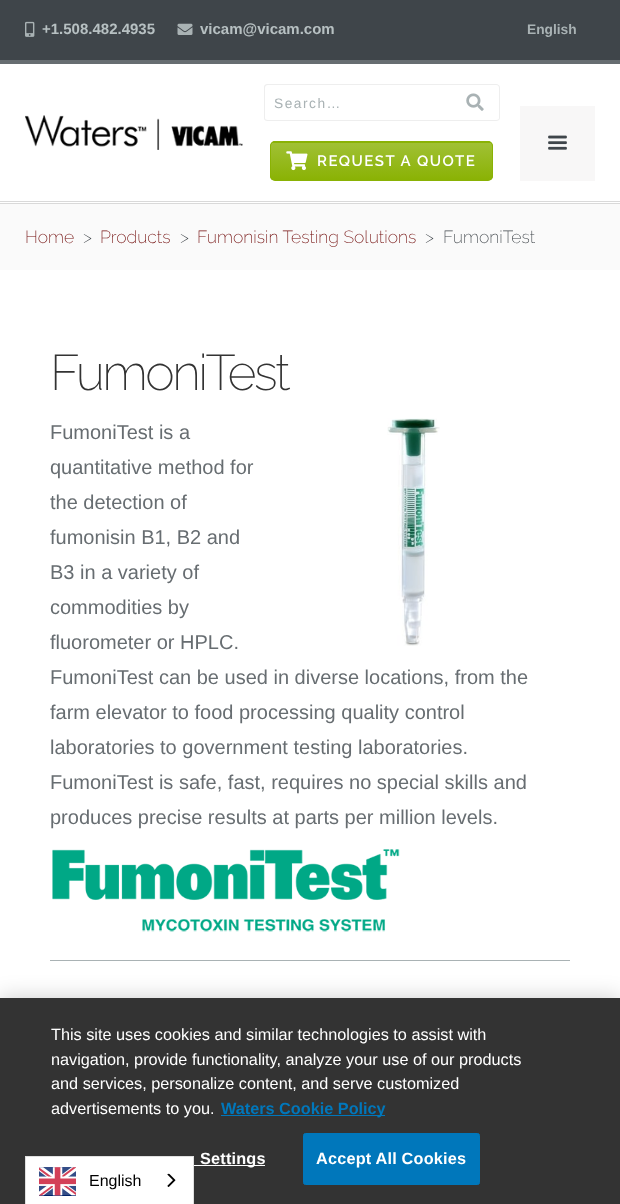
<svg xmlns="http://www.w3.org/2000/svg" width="620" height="1204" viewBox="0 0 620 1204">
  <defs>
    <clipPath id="clip1"><rect x="270" y="141" width="223" height="40" rx="5"/></clipPath>
    <linearGradient id="g1" gradientUnits="userSpaceOnUse" x1="381" y1="105" x2="381" y2="143"><stop offset="0" stop-color="#a1c136"/><stop offset="1" stop-color="#8ab204"/></linearGradient>
    <linearGradient id="g2" gradientUnits="userSpaceOnUse" x1="381" y1="142" x2="381" y2="180"><stop offset="0" stop-color="#a1c136"/><stop offset="1" stop-color="#8ab204"/></linearGradient>
    <filter id="blur1" x="-50%" y="-200%" width="200%" height="500%"><feGaussianBlur stdDeviation="11"/></filter>
  </defs>
  <rect width="100%" height="100%" fill="#ffffff"/>
  <rect x="0" y="0" width="620" height="60" fill="#3f454a"/>
  <rect x="0" y="60" width="620" height="4" fill="#676d71"/>
  <image x="25" y="21" width="10" height="16" href="img1.png"/>
  <text x="42" y="34" font-family="Liberation Sans" font-size="15" font-weight="bold" fill="#b7c0c2">+1.508.482.4935</text>
  <image x="177" y="23" width="16" height="12" href="img2.png"/>
  <text x="200" y="34" font-family="Liberation Sans" font-size="15" font-weight="bold" fill="#b7c0c2">vicam@vicam.com</text>
  <text x="527" y="34" font-family="Liberation Sans" font-size="13.75" font-weight="bold" fill="#a9b2b4">English</text>
  <path d="M268 84H451V121H268C265 121 264 120 264 118V88C264 85 265 84 268 84ZM268 85H451V120H268C266 120 265 119 265 118V88C265 86 266 85 268 85Z" fill="#eeeeee" fill-rule="evenodd"/>
  <text x="274" y="108" font-family="Liberation Sans" font-size="13.75" letter-spacing="1.5" fill="#a9b2b4">Search…</text>
  <path d="M451 84H496C498 84 500 85 500 88V118C500 120 498 121 496 121H451ZM451 85H496C498 85 499 86 499 88V118C499 119 498 120 496 120H451Z" fill="#eeeeee" fill-rule="evenodd"/>
  <image x="466" y="93" width="18" height="18" href="img3.png"/>
  <image x="25" y="115" width="218" height="35" href="img4.png"/>
  <rect x="520" y="106" width="75" height="75" fill="#f8f7f7"/>
  <image x="548" y="135" width="19" height="15" href="img5.png"/>
  <g clip-path="url(#clip1)">
    <rect x="270" y="141" width="223" height="2" fill="url(#g1)"/>
    <rect x="270" y="143" width="223" height="37" fill="url(#g2)"/>
  </g>
  <image x="286" y="151" width="22" height="20" href="img6.png"/>
  <rect x="270.5" y="141.5" width="222" height="39" rx="4.5" fill="none" stroke="#8ab204"/>
  <text x="317" y="166" font-family="Raleway" font-size="15" font-weight="600" letter-spacing="1.5" fill="#ffffff">REQUEST A QUOTE</text>
  <rect x="0" y="201" width="620" height="1" fill="#d9d9d9"/>
  <rect x="0" y="203" width="620" height="1" fill="#d9d9d9"/>
  <rect x="0" y="204" width="620" height="66" fill="#fafafa"/>
  <text x="25" y="243" font-family="Raleway" font-size="17.5" font-weight="200" fill="#6e0605">Home</text>
  <text x="83" y="243" font-family="Raleway" font-size="17.5" font-weight="200" fill="#3f454a">&gt;</text>
  <text x="100" y="243" font-family="Raleway" font-size="17.5" font-weight="200" fill="#6e0605">Products</text>
  <text x="180" y="243" font-family="Raleway" font-size="17.5" font-weight="200" fill="#3f454a">&gt;</text>
  <text x="197" y="243" font-family="Raleway" font-size="17.5" font-weight="200" fill="#6e0605">Fumonisin Testing Solutions</text>
  <text x="425" y="243" font-family="Raleway" font-size="17.5" font-weight="200" fill="#3f454a">&gt;</text>
  <text x="443" y="243" font-family="Raleway" font-size="17.5" font-weight="200" fill="#3f454a">FumoniTest</text>
  <text x="50" y="390" font-family="Raleway" font-size="50" font-weight="200" letter-spacing="-2.5" fill="#333333">FumoniTest</text>
  <image x="387" y="418" width="53" height="228" href="img7.png"/>
  <text x="50" y="439" font-family="Liberation Sans" font-size="20" fill="#676d71">FumoniTest is a</text>
  <text x="50" y="474" font-family="Liberation Sans" font-size="20" fill="#676d71">quantitative method for</text>
  <text x="50" y="509" font-family="Liberation Sans" font-size="20" fill="#676d71">the detection of</text>
  <text x="50" y="544" font-family="Liberation Sans" font-size="20" fill="#676d71">fumonisin B1, B2 and</text>
  <text x="50" y="579" font-family="Liberation Sans" font-size="20" fill="#676d71">B3 in a variety of</text>
  <text x="50" y="614" font-family="Liberation Sans" font-size="20" fill="#676d71">commodities by</text>
  <text x="50" y="649" font-family="Liberation Sans" font-size="20" fill="#676d71">fluorometer or HPLC.</text>
  <text x="50" y="684" font-family="Liberation Sans" font-size="20" fill="#676d71">FumoniTest can be used in diverse locations, from the</text>
  <text x="50" y="719" font-family="Liberation Sans" font-size="20" fill="#676d71">farm elevator to food processing quality control</text>
  <text x="50" y="754" font-family="Liberation Sans" font-size="20" fill="#676d71">laboratories to government testing laboratories.</text>
  <text x="50" y="789" font-family="Liberation Sans" font-size="20" fill="#676d71">FumoniTest is safe, fast, requires no special skills and</text>
  <text x="50" y="824" font-family="Liberation Sans" font-size="20" fill="#676d71">produces precise results at parts per million levels.</text>
  <image x="52" y="849" width="348" height="83" href="img8.png"/>
  <rect x="50" y="960" width="520" height="1" fill="#a9b2b4"/>
  <rect x="0" y="998" width="620" height="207" fill="#000000" fill-opacity="0.2" filter="url(#blur1)"/>
  <rect x="0" y="998" width="620" height="206" fill="#333333"/>
  <text x="51" y="1040" font-family="Liberation Sans" font-size="16.25" fill="#ffffff">This site uses cookies and similar technologies to assist with</text>
  <text x="51" y="1065" font-family="Liberation Sans" font-size="16.25" fill="#ffffff">navigation, provide functionality, analyze your use of our products</text>
  <text x="51" y="1089" font-family="Liberation Sans" font-size="16.25" fill="#ffffff">and services, personalize content, and serve customized</text>
  <text x="51" y="1114" font-family="Liberation Sans" font-size="16.25" fill="#ffffff">advertisements to you.</text>
  <rect x="221" y="1115" width="164" height="1" fill="#0077bb"/>
  <text x="221" y="1114" font-family="Liberation Sans" font-size="16.25" font-weight="bold" fill="#0077bb">Waters Cookie Policy</text>
  <rect x="194" y="1165" width="71" height="1" fill="#ffffff"/>
  <text x="200" y="1164" font-family="Liberation Sans" font-size="16.25" font-weight="bold" letter-spacing="0.2" fill="#ffffff">Settings</text>
  <rect x="303.5" y="1133.5" width="176" height="51" rx="2" fill="#0077bb" stroke="#0077bb"/>
  <text x="316" y="1164" font-family="Liberation Sans" font-size="16.25" font-weight="bold" letter-spacing="0.2" fill="#ffffff">Accept All Cookies</text>
  <rect x="25.5" y="1156.5" width="168" height="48" fill="#ffffff" stroke="#e0e0e0"/>
  <image x="39" y="1167" width="37" height="29" href="img9.png"/>
  <text x="89" y="1186" font-family="Liberation Sans" font-size="16" fill="#000000">English</text>
  <image x="167" y="1173" width="9" height="14" href="img10.png"/>
</svg>
